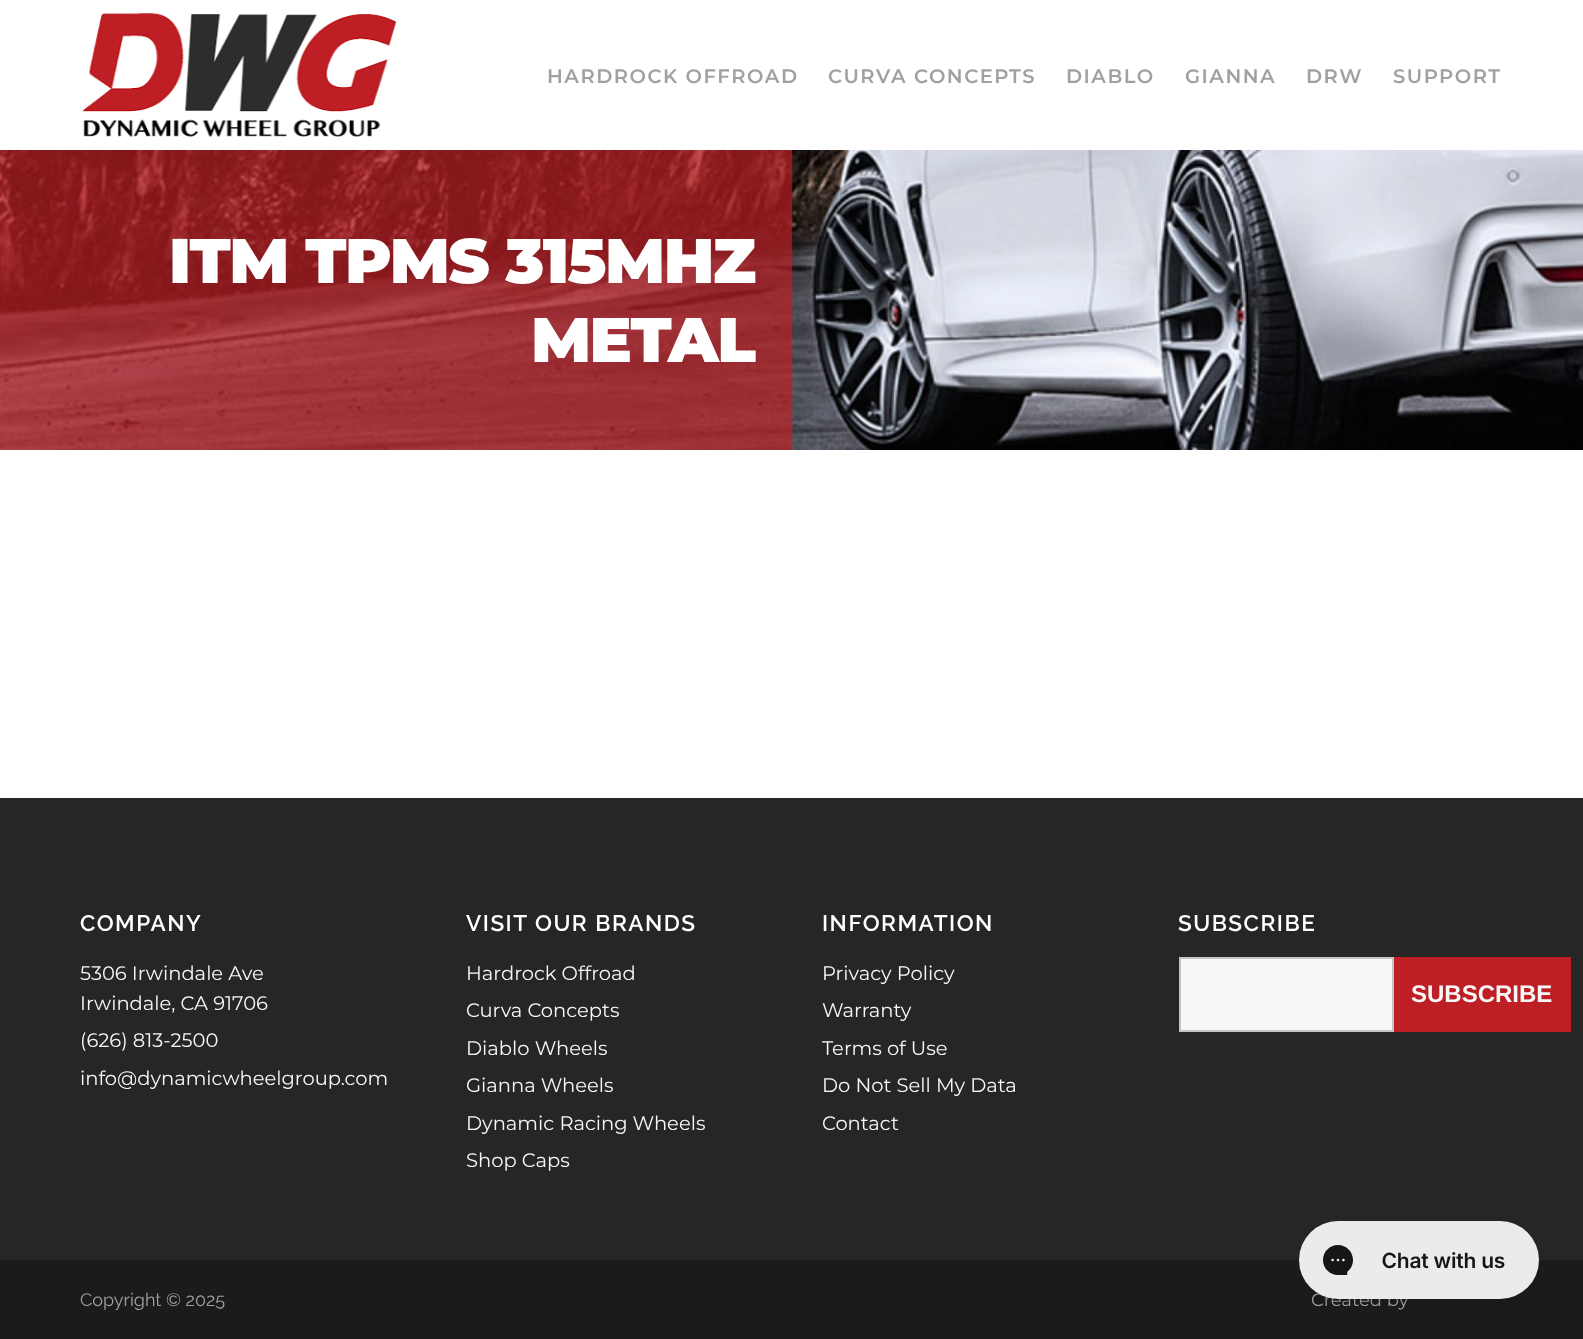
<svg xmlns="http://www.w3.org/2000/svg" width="1583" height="1339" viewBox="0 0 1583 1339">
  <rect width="100%" height="100%" fill="#ffffff"/>
  <image x="82" y="13" width="315" height="124" href="img1.png"/>
  <text x="547" y="83" font-family="Montserrat" font-size="19.5" font-weight="600" letter-spacing="1.5" fill="#a1a1a1">HARDROCK OFFROAD</text>
  <text x="828" y="83" font-family="Montserrat" font-size="19.5" font-weight="600" letter-spacing="1.5" fill="#a1a1a1">CURVA CONCEPTS</text>
  <text x="1066" y="83" font-family="Montserrat" font-size="19.5" font-weight="600" letter-spacing="1.5" fill="#a1a1a1">DIABLO</text>
  <text x="1185" y="83" font-family="Montserrat" font-size="19.5" font-weight="600" letter-spacing="1.5" fill="#a1a1a1">GIANNA</text>
  <text x="1306" y="83" font-family="Montserrat" font-size="19.5" font-weight="600" letter-spacing="1.5" fill="#a1a1a1">DRW</text>
  <text x="1393" y="83" font-family="Montserrat" font-size="19.5" font-weight="600" letter-spacing="1.5" fill="#a1a1a1">SUPPORT</text>
  <image x="0" y="150" width="1583" height="300" href="img2.png"/>
  <text x="169" y="283" font-family="Montserrat" font-size="63" font-weight="900" letter-spacing="-1.5" fill="#ffffff">ITM TPMS 315MHZ</text>
  <text x="531" y="362" font-family="Montserrat" font-size="63" font-weight="900" letter-spacing="-1.5" fill="#ffffff">METAL</text>
  <rect x="0" y="798" width="1583" height="462" fill="#262626"/>
  <text x="80" y="931" font-family="Raleway" font-size="22.5" font-weight="600" letter-spacing="1.5" fill="#ffffff">COMPANY</text>
  <text x="80" y="980" font-family="Montserrat" font-size="19.5" fill="#f7f7f7">5306 Irwindale Ave</text>
  <text x="80" y="1010" font-family="Montserrat" font-size="19.5" fill="#f7f7f7">Irwindale, CA 91706</text>
  <text x="80" y="1047" font-family="Montserrat" font-size="19.5" fill="#f7f7f7">(626) 813-2500</text>
  <text x="80" y="1085" font-family="Montserrat" font-size="19.5" fill="#f7f7f7">info@dynamicwheelgroup.com</text>
  <text x="466" y="931" font-family="Raleway" font-size="22.5" font-weight="600" letter-spacing="1.5" fill="#ffffff">VISIT OUR BRANDS</text>
  <text x="466" y="980" font-family="Montserrat" font-size="19.5" fill="#f7f7f7">Hardrock Offroad</text>
  <text x="466" y="1017" font-family="Montserrat" font-size="19.5" fill="#f7f7f7">Curva Concepts</text>
  <text x="466" y="1055" font-family="Montserrat" font-size="19.5" fill="#f7f7f7">Diablo Wheels</text>
  <text x="466" y="1092" font-family="Montserrat" font-size="19.5" fill="#f7f7f7">Gianna Wheels</text>
  <text x="466" y="1130" font-family="Montserrat" font-size="19.5" fill="#f7f7f7">Dynamic Racing Wheels</text>
  <text x="466" y="1167" font-family="Montserrat" font-size="19.5" fill="#f7f7f7">Shop Caps</text>
  <text x="822" y="931" font-family="Raleway" font-size="22.5" font-weight="600" letter-spacing="1.5" fill="#ffffff">INFORMATION</text>
  <text x="822" y="980" font-family="Montserrat" font-size="19.5" fill="#f7f7f7">Privacy Policy</text>
  <text x="822" y="1017" font-family="Montserrat" font-size="19.5" fill="#f7f7f7">Warranty</text>
  <text x="822" y="1055" font-family="Montserrat" font-size="19.5" fill="#f7f7f7">Terms of Use</text>
  <text x="822" y="1092" font-family="Montserrat" font-size="19.5" fill="#f7f7f7">Do Not Sell My Data</text>
  <text x="822" y="1130" font-family="Montserrat" font-size="19.5" fill="#f7f7f7">Contact</text>
  <text x="1178" y="931" font-family="Raleway" font-size="22.5" font-weight="600" letter-spacing="1.5" fill="#ffffff">SUBSCRIBE</text>
  <rect x="1180" y="958" width="213" height="73" fill="#f7f7f7" stroke="#c4c4c4" stroke-width="2"/>
  <rect x="1394" y="957" width="177" height="75" fill="#bd1f25"/>
  <text x="1411" y="1002" font-family="Liberation Sans" font-size="24" font-weight="bold" fill="#f7f7f7">SUBSCRIBE</text>
  <rect x="0" y="1260" width="1583" height="79" fill="#1b1b1b"/>
  <text x="80" y="1306" font-family="Raleway" font-size="18" fill="#a1a1a1">Copyright © 2025</text>
  <text x="1311" y="1306" font-family="Montserrat" font-size="18" fill="#a1a1a1">Created by</text>
  <image x="1299" y="1221" width="240" height="84" href="img3.png"/>
</svg>
